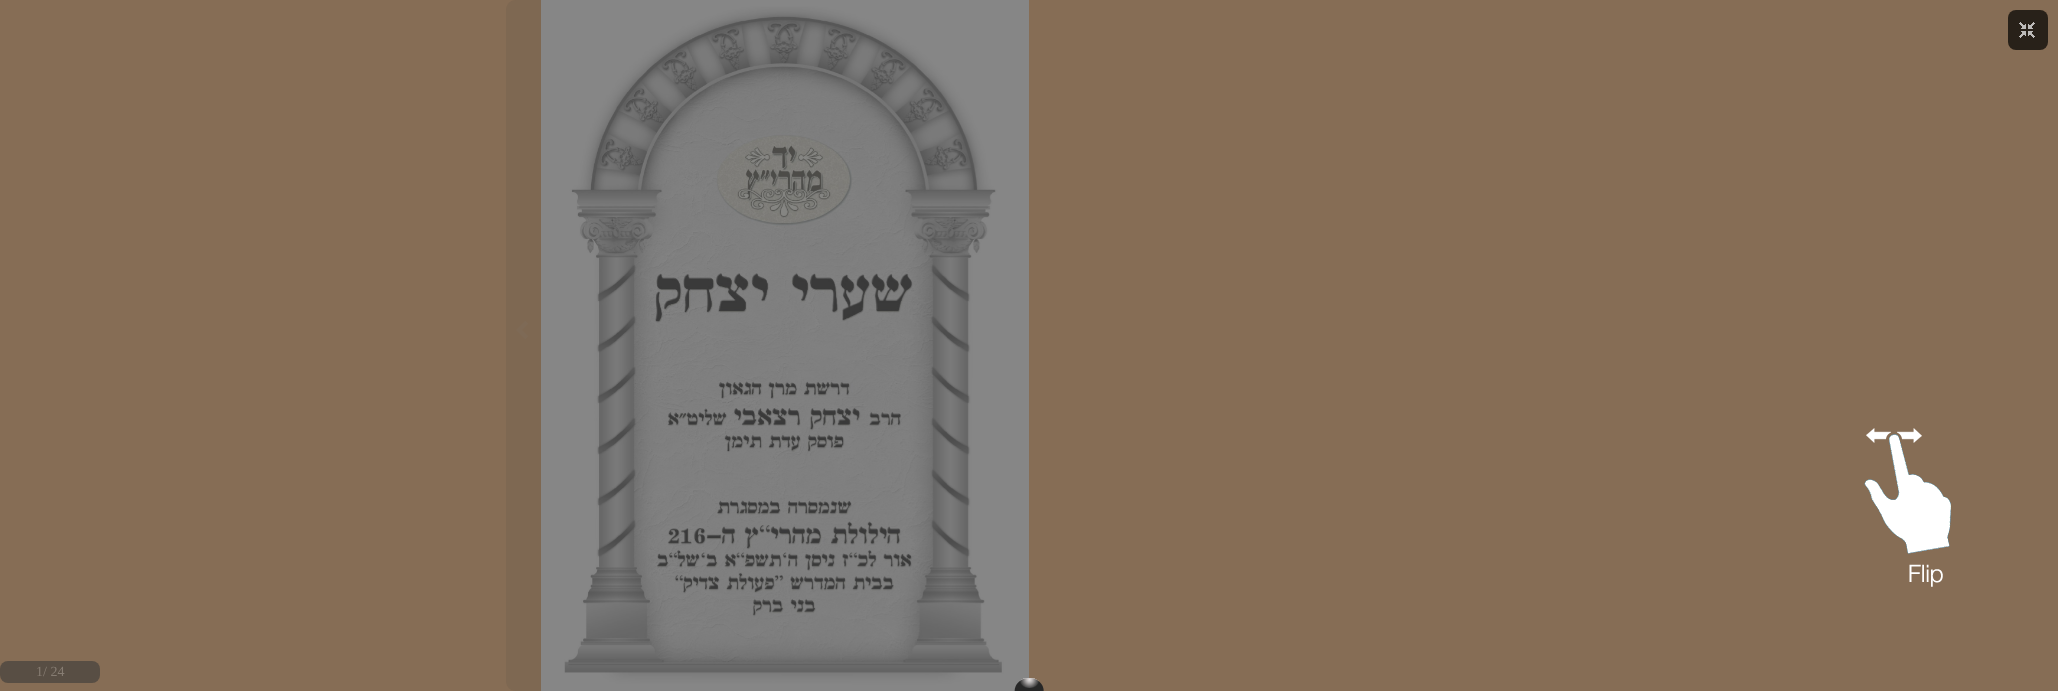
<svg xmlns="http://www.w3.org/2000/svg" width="2058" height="691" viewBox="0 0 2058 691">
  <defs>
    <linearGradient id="g1" gradientUnits="userSpaceOnUse" x1="541" y1="346" x2="1029" y2="346"><stop offset="0.95" stop-color="#868686"/><stop offset="1" stop-color="#7c7c7c"/></linearGradient>
  </defs>
  <rect width="100%" height="100%" fill="#866d55"/>
  <image x="1864" y="428" width="87" height="159" href="img1.png"/>
  <path d="M516 0H541V691H516C510.5 691 506 686.5 506 681V10C506 4.5 510.5 0 516 0Z" fill="#7e6852"/>
  <image x="516" y="321" width="12" height="18" href="img2.png"/>
  <rect x="541" y="2" width="488" height="689" fill="url(#g1)"/>
  <rect x="541" y="0" width="488" height="2" fill="#868686"/>
  <image x="564" y="2" width="465" height="689" href="img3.png"/>
  <rect x="2008" y="10" width="40" height="40" rx="8" fill="#282119"/>
  <image x="2019" y="22" width="16" height="16" href="img4.png"/>
  <rect x="0" y="661" width="100" height="22" rx="8" fill="#584e44"/>
  <text x="36" y="676" font-family="Liberation Serif" font-size="14" fill="#867c72">1/ 24</text>
  <image x="1014" y="678" width="30" height="13" href="img5.png"/>
</svg>
